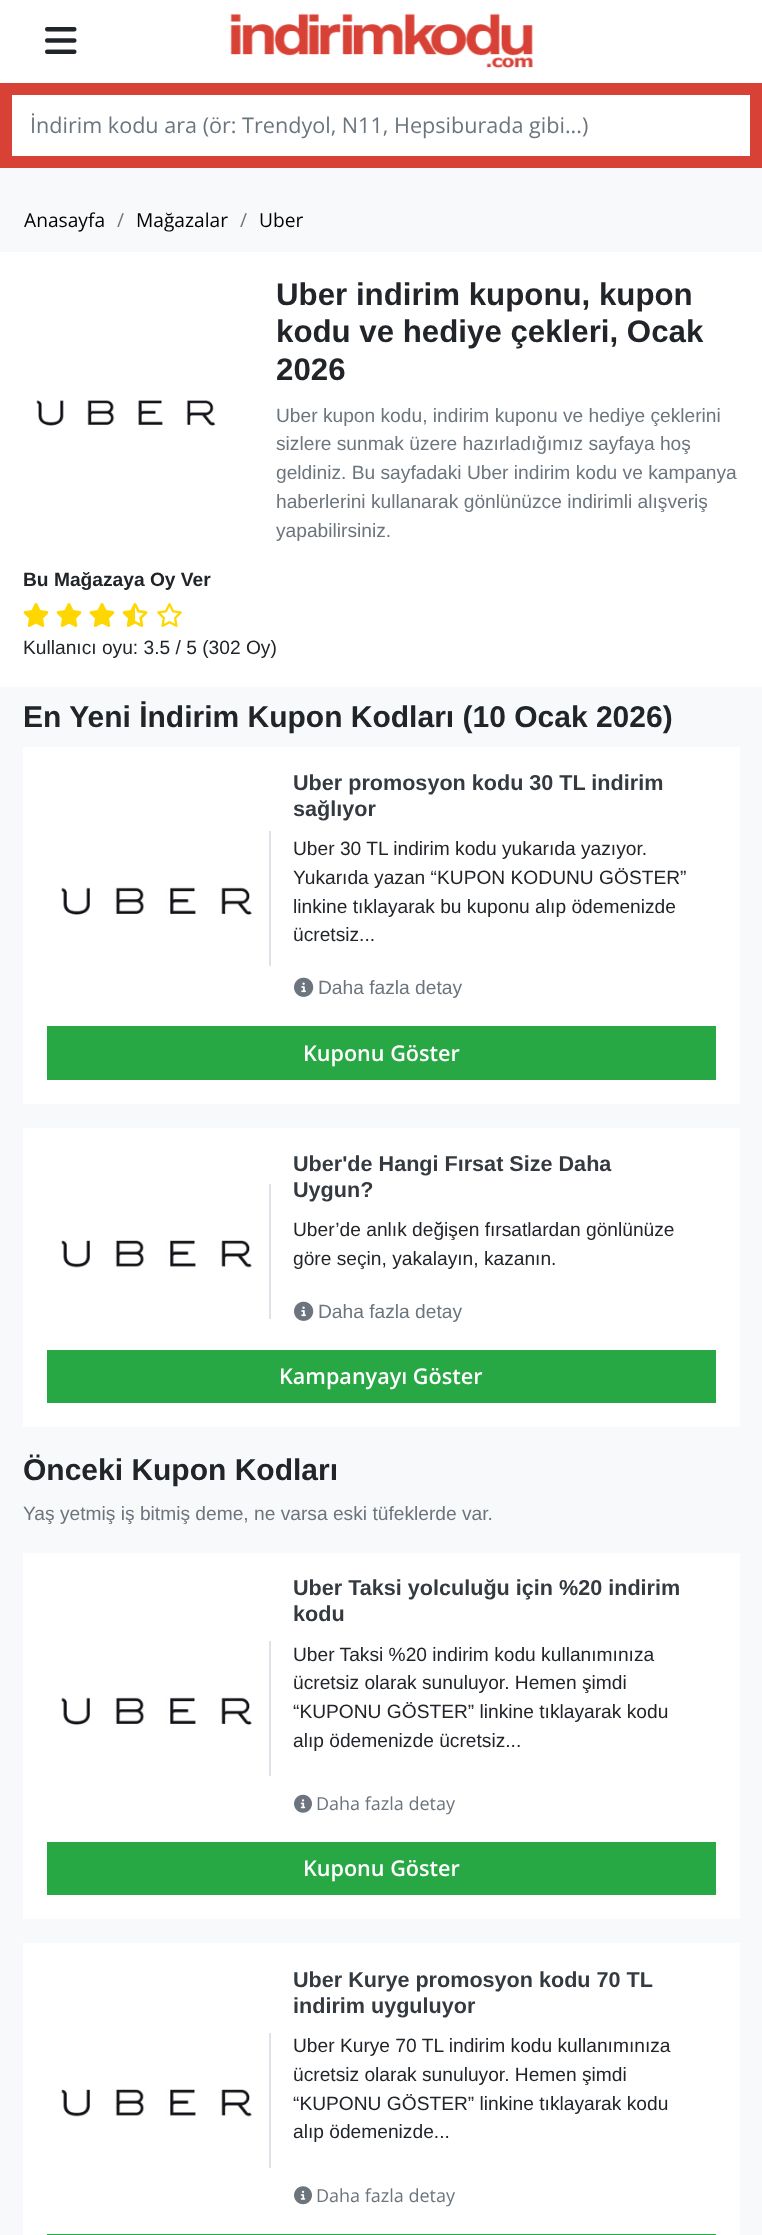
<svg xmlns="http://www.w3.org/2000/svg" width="762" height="2235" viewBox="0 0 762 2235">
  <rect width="100%" height="100%" fill="#f8f9fa"/>
  <rect x="0" y="0" width="762" height="83" fill="#ffffff"/>
  <image x="45" y="27" width="32" height="27" href="img1.png"/>
  <image x="230" y="13" width="303" height="56" href="img2.png"/>
  <rect x="0" y="83" width="762" height="85" fill="#d84136"/>
  <rect x="12" y="95" width="738" height="61" fill="#ffffff"/>
  <text x="30" y="133" font-family="Open Sans" font-size="21.6" fill="#6c757d">İndirim kodu ara (ör: Trendyol, N11, Hepsiburada gibi...)</text>
  <text x="24" y="227" font-family="Open Sans" font-size="19.2" fill="#000000">Anasayfa</text>
  <text x="117" y="227" font-family="Open Sans" font-size="19.2" fill="#6c757d">/</text>
  <text x="136" y="227" font-family="Open Sans" font-size="19.2" fill="#000000">Mağazalar</text>
  <text x="240" y="227" font-family="Open Sans" font-size="19.2" fill="#6c757d">/</text>
  <text x="259" y="227" font-family="Open Sans" font-size="19.2" fill="#000000">Uber</text>
  <rect x="0" y="252" width="762" height="435" fill="#ffffff"/>
  <image x="36" y="400" width="180" height="26" href="img3.png"/>
  <text x="276" y="305" font-family="Liberation Sans" font-size="31.25" font-weight="bold" fill="#212529">Uber indirim kuponu, kupon</text>
  <text x="276" y="342" font-family="Liberation Sans" font-size="31.25" font-weight="bold" fill="#212529">kodu ve hediye çekleri, Ocak</text>
  <text x="276" y="380" font-family="Liberation Sans" font-size="31.25" font-weight="bold" fill="#212529">2026</text>
  <text x="276" y="422" font-family="Liberation Sans" font-size="19.2" fill="#6c757d">Uber kupon kodu, indirim kuponu ve hediye çeklerini</text>
  <text x="276" y="450" font-family="Liberation Sans" font-size="19.2" fill="#6c757d">sizlere sunmak üzere hazırladığımız sayfaya hoş</text>
  <text x="276" y="479" font-family="Liberation Sans" font-size="19.2" fill="#6c757d">geldiniz. Bu sayfadaki Uber indirim kodu ve kampanya</text>
  <text x="276" y="508" font-family="Liberation Sans" font-size="19.2" fill="#6c757d">haberlerini kullanarak gönlünüzce indirimli alışveriş</text>
  <text x="276" y="537" font-family="Liberation Sans" font-size="19.2" fill="#6c757d">yapabilirsiniz.</text>
  <text x="23" y="586" font-family="Liberation Sans" font-size="19.2" font-weight="bold" fill="#212529">Bu Mağazaya Oy Ver</text>
  <image x="23" y="603" width="26" height="24" href="img4.png"/>
  <image x="56" y="603" width="26" height="24" href="img4.png"/>
  <image x="89" y="603" width="26" height="24" href="img4.png"/>
  <image x="122" y="603" width="26" height="24" href="img5.png"/>
  <image x="157" y="603" width="25" height="24" href="img6.png"/>
  <text x="23" y="654" font-family="Liberation Sans" font-size="19.2" fill="#212529">Kullanıcı oyu: 3.5 / 5 (302 Oy)</text>
  <text x="23" y="727" font-family="Liberation Sans" font-size="30" font-weight="bold" fill="#212529">En Yeni İndirim Kupon Kodları (10 Ocak 2026)</text>
  <rect x="23" y="747" width="717" height="357" fill="#ffffff"/>
  <rect x="269" y="831" width="2" height="135" fill="#dee2e6"/>
  <image x="61" y="887" width="191" height="28" href="img7.png"/>
  <text x="293" y="790" font-family="Liberation Sans" font-size="21.6" font-weight="bold" fill="#343a40">Uber promosyon kodu 30 TL indirim</text>
  <text x="293" y="816" font-family="Liberation Sans" font-size="21.6" font-weight="bold" fill="#343a40">sağlıyor</text>
  <text x="293" y="855" font-family="Liberation Sans" font-size="19.2" fill="#212529">Uber 30 TL indirim kodu yukarıda yazıyor.</text>
  <text x="293" y="884" font-family="Liberation Sans" font-size="19.2" fill="#212529">Yukarıda yazan “KUPON KODUNU GÖSTER”</text>
  <text x="293" y="913" font-family="Liberation Sans" font-size="19.2" fill="#212529">linkine tıklayarak bu kuponu alıp ödemenizde</text>
  <text x="293" y="941" font-family="Liberation Sans" font-size="19.2" fill="#212529">ücretsiz...</text>
  <image x="294" y="977" width="20" height="20" href="img8.png"/>
  <text x="318" y="994" font-family="Liberation Sans" font-size="19.2" fill="#6c757d">Daha fazla detay</text>
  <rect x="47" y="1026" width="669" height="54" fill="#28a745"/>
  <text x="303" y="1061" font-family="Open Sans" font-size="21.6" font-weight="600" fill="#ffffff">Kuponu Göster</text>
  <rect x="23" y="1128" width="717" height="299" fill="#ffffff"/>
  <rect x="269" y="1184" width="2" height="135" fill="#dee2e6"/>
  <image x="61" y="1240" width="191" height="28" href="img9.png"/>
  <text x="293" y="1171" font-family="Liberation Sans" font-size="21.6" font-weight="bold" fill="#343a40">Uber'de Hangi Fırsat Size Daha</text>
  <text x="293" y="1197" font-family="Liberation Sans" font-size="21.6" font-weight="bold" fill="#343a40">Uygun?</text>
  <text x="293" y="1236" font-family="Liberation Sans" font-size="19.2" fill="#212529">Uber’de anlık değişen fırsatlardan gönlünüze</text>
  <text x="293" y="1265" font-family="Liberation Sans" font-size="19.2" fill="#212529">göre seçin, yakalayın, kazanın.</text>
  <image x="294" y="1301" width="20" height="20" href="img8.png"/>
  <text x="318" y="1318" font-family="Liberation Sans" font-size="19.2" fill="#6c757d">Daha fazla detay</text>
  <rect x="47" y="1350" width="669" height="53" fill="#28a745"/>
  <text x="279" y="1384" font-family="Open Sans" font-size="21.6" font-weight="600" fill="#ffffff">Kampanyayı Göster</text>
  <text x="23" y="1480" font-family="Liberation Sans" font-size="30" font-weight="bold" fill="#212529">Önceki Kupon Kodları</text>
  <text x="23" y="1520" font-family="Liberation Sans" font-size="19.2" fill="#6c757d">Yaş yetmiş iş bitmiş deme, ne varsa eski tüfeklerde var.</text>
  <rect x="23" y="1553" width="717" height="366" fill="#ffffff"/>
  <rect x="269" y="1641" width="2" height="135" fill="#dee2e6"/>
  <image x="61" y="1697" width="191" height="28" href="img10.png"/>
  <text x="293" y="1595" font-family="Liberation Sans" font-size="21.6" font-weight="bold" fill="#343a40">Uber Taksi yolculuğu için %20 indirim</text>
  <text x="293" y="1621" font-family="Liberation Sans" font-size="21.6" font-weight="bold" fill="#343a40">kodu</text>
  <text x="293" y="1661" font-family="Liberation Sans" font-size="19.2" fill="#212529">Uber Taksi %20 indirim kodu kullanımınıza</text>
  <text x="293" y="1689" font-family="Liberation Sans" font-size="19.2" fill="#212529">ücretsiz olarak sunuluyor. Hemen şimdi</text>
  <text x="293" y="1718" font-family="Liberation Sans" font-size="19.2" fill="#212529">“KUPONU GÖSTER” linkine tıklayarak kodu</text>
  <text x="293" y="1747" font-family="Liberation Sans" font-size="19.2" fill="#212529">alıp ödemenizde ücretsiz...</text>
  <image x="294" y="1794" width="18" height="19" href="img11.png"/>
  <text x="316" y="1810" font-family="Open Sans" font-size="18" fill="#6c757d">Daha fazla detay</text>
  <rect x="47" y="1842" width="669" height="53" fill="#28a745"/>
  <text x="303" y="1876" font-family="Open Sans" font-size="21.6" font-weight="600" fill="#ffffff">Kuponu Göster</text>
  <rect x="23" y="1943" width="717" height="292" fill="#ffffff"/>
  <rect x="269" y="2033" width="2" height="135" fill="#dee2e6"/>
  <image x="61" y="2089" width="191" height="28" href="img9.png"/>
  <text x="293" y="1987" font-family="Liberation Sans" font-size="21.6" font-weight="bold" fill="#343a40">Uber Kurye promosyon kodu 70 TL</text>
  <text x="293" y="2013" font-family="Liberation Sans" font-size="21.6" font-weight="bold" fill="#343a40">indirim uyguluyor</text>
  <text x="293" y="2052" font-family="Liberation Sans" font-size="19.2" fill="#212529">Uber Kurye 70 TL indirim kodu kullanımınıza</text>
  <text x="293" y="2081" font-family="Liberation Sans" font-size="19.2" fill="#212529">ücretsiz olarak sunuluyor. Hemen şimdi</text>
  <text x="293" y="2110" font-family="Liberation Sans" font-size="19.2" fill="#212529">“KUPONU GÖSTER” linkine tıklayarak kodu</text>
  <text x="293" y="2138" font-family="Liberation Sans" font-size="19.2" fill="#212529">alıp ödemenizde...</text>
  <image x="294" y="2186" width="18" height="19" href="img12.png"/>
  <text x="316" y="2202" font-family="Open Sans" font-size="18" fill="#6c757d">Daha fazla detay</text>
  <rect x="47" y="2234" width="669" height="1" fill="#28a745"/>
</svg>
